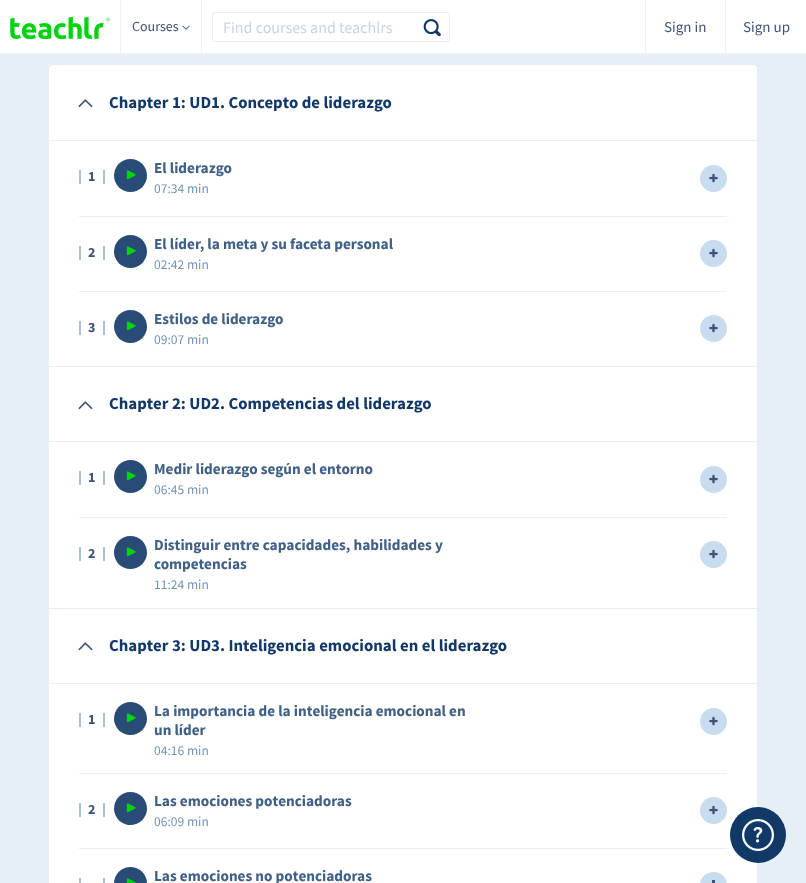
<svg xmlns="http://www.w3.org/2000/svg" width="806" height="883" viewBox="0 0 806 883">
  <rect width="100%" height="100%" fill="#e6eef6"/>
  <rect x="0" y="0" width="806" height="53" fill="#ffffff"/>
  <rect x="0" y="53" width="806" height="2" fill="#ecf2f8"/>
  <image x="10" y="16" width="100" height="24" href="img1.png"/>
  <rect x="120" y="0" width="1" height="55" fill="#ecf2f8"/>
  <text x="132" y="31" font-family="Source Sans Pro" font-size="14" fill="#3e5374">Courses</text>
  <image x="182" y="25" width="8" height="5" href="img2.png"/>
  <rect x="201" y="0" width="1" height="55" fill="#ecf2f8"/>
  <rect x="213" y="12" width="236" height="1" fill="#e6eef6"/>
  <rect x="213" y="41" width="236" height="1" fill="#e6eef6"/>
  <rect x="212" y="13" width="1" height="28" fill="#e6eef6"/>
  <text x="223" y="33" font-family="Source Sans Pro" font-size="16" fill="#c6d4e1">Find courses and teachlrs</text>
  <rect x="449" y="13" width="1" height="28" fill="#e6eef6"/>
  <image x="423" y="19" width="18" height="18" href="img3.png"/>
  <rect x="645" y="0" width="1" height="55" fill="#ecf2f8"/>
  <text x="664" y="32" font-family="Source Sans Pro" font-size="15" fill="#3e5374">Sign in</text>
  <rect x="725" y="0" width="1" height="55" fill="#ecf2f8"/>
  <text x="743" y="32" font-family="Source Sans Pro" font-size="15" fill="#3e5374">Sign up</text>
  <rect x="49" y="65" width="708" height="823" rx="5" fill="#ffffff"/>
  <path d="M54 65H752C755 65 757 67 757 70V141H49V70C49 67 51 65 54 65Z" fill="#ffffff"/>
  <rect x="49" y="140" width="708" height="1" fill="#e6eef6"/>
  <image x="78" y="99" width="15" height="9" href="img4.png"/>
  <text x="109" y="108" font-family="Source Sans Pro" font-size="16.75" font-weight="bold" fill="#113868">Chapter 1: UD1. Concepto de liderazgo</text>
  <rect x="103" y="170" width="2" height="14" fill="#aabfd3"/>
  <rect x="79" y="170" width="2" height="14" fill="#aabfd3"/>
  <text x="88" y="181" font-family="Source Sans Pro" font-size="14" font-weight="bold" fill="#3e5374">1</text>
  <circle cx="130.5" cy="175.5" r="16.5" fill="#294c77"/>
  <image x="126" y="170" width="10" height="10" href="img5.png"/>
  <text x="154" y="173" font-family="Source Sans Pro" font-size="15.2" font-weight="bold" fill="#416086">El liderazgo</text>
  <text x="154" y="193" font-family="Source Sans Pro" font-size="13.5" fill="#7194b5">07:34 min</text>
  <circle cx="713.5" cy="178.5" r="13.5" fill="#c9dbef"/>
  <image x="709" y="173" width="9" height="10" href="img6.png"/>
  <rect x="79" y="216" width="648" height="1" fill="#e6eef6"/>
  <rect x="103" y="246" width="2" height="14" fill="#aabfd3"/>
  <rect x="79" y="246" width="2" height="14" fill="#aabfd3"/>
  <text x="88" y="257" font-family="Source Sans Pro" font-size="14" font-weight="bold" fill="#3e5374">2</text>
  <circle cx="130.5" cy="251.5" r="16.5" fill="#294c77"/>
  <image x="126" y="246" width="10" height="10" href="img5.png"/>
  <text x="154" y="249" font-family="Source Sans Pro" font-size="15.2" font-weight="bold" fill="#416086">El líder, la meta y su faceta personal</text>
  <text x="154" y="269" font-family="Source Sans Pro" font-size="13.5" fill="#7194b5">02:42 min</text>
  <circle cx="713.5" cy="253.5" r="13.5" fill="#c9dbef"/>
  <image x="709" y="248" width="9" height="10" href="img6.png"/>
  <rect x="79" y="291" width="648" height="1" fill="#e6eef6"/>
  <rect x="103" y="321" width="2" height="14" fill="#aabfd3"/>
  <rect x="79" y="321" width="2" height="14" fill="#aabfd3"/>
  <text x="88" y="332" font-family="Source Sans Pro" font-size="14" font-weight="bold" fill="#3e5374">3</text>
  <circle cx="130.5" cy="326.5" r="16.5" fill="#294c77"/>
  <image x="126" y="321" width="10" height="10" href="img5.png"/>
  <text x="154" y="324" font-family="Source Sans Pro" font-size="15.2" font-weight="bold" fill="#416086">Estilos de liderazgo</text>
  <text x="154" y="344" font-family="Source Sans Pro" font-size="13.5" fill="#7194b5">09:07 min</text>
  <circle cx="713.5" cy="328.5" r="13.5" fill="#c9dbef"/>
  <image x="709" y="323" width="9" height="10" href="img6.png"/>
  <rect x="49" y="366" width="708" height="1" fill="#e6eef6"/>
  <rect x="49" y="441" width="708" height="1" fill="#e6eef6"/>
  <image x="78" y="401" width="15" height="9" href="img4.png"/>
  <text x="109" y="409" font-family="Source Sans Pro" font-size="16.75" font-weight="bold" fill="#113868">Chapter 2: UD2. Competencias del liderazgo</text>
  <rect x="103" y="471" width="2" height="14" fill="#aabfd3"/>
  <rect x="79" y="471" width="2" height="14" fill="#aabfd3"/>
  <text x="88" y="482" font-family="Source Sans Pro" font-size="14" font-weight="bold" fill="#3e5374">1</text>
  <circle cx="130.5" cy="476.5" r="16.5" fill="#294c77"/>
  <image x="126" y="471" width="10" height="10" href="img5.png"/>
  <text x="154" y="474" font-family="Source Sans Pro" font-size="15.2" font-weight="bold" fill="#416086">Medir liderazgo según el entorno</text>
  <text x="154" y="494" font-family="Source Sans Pro" font-size="13.5" fill="#7194b5">06:45 min</text>
  <circle cx="713.5" cy="479.5" r="13.5" fill="#c9dbef"/>
  <image x="709" y="474" width="9" height="10" href="img6.png"/>
  <rect x="79" y="517" width="648" height="1" fill="#e6eef6"/>
  <rect x="103" y="547" width="2" height="14" fill="#aabfd3"/>
  <rect x="79" y="547" width="2" height="14" fill="#aabfd3"/>
  <text x="88" y="558" font-family="Source Sans Pro" font-size="14" font-weight="bold" fill="#3e5374">2</text>
  <circle cx="130.5" cy="552.5" r="16.5" fill="#294c77"/>
  <image x="126" y="547" width="10" height="10" href="img5.png"/>
  <text x="154" y="550" font-family="Source Sans Pro" font-size="15.2" font-weight="bold" fill="#416086">Distinguir entre capacidades, habilidades y</text>
  <text x="154" y="569" font-family="Source Sans Pro" font-size="15.2" font-weight="bold" fill="#416086">competencias</text>
  <text x="154" y="589" font-family="Source Sans Pro" font-size="13.5" fill="#7194b5">11:24 min</text>
  <circle cx="713.5" cy="554.5" r="13.5" fill="#c9dbef"/>
  <image x="709" y="549" width="9" height="10" href="img6.png"/>
  <rect x="49" y="608" width="708" height="1" fill="#e6eef6"/>
  <rect x="49" y="683" width="708" height="1" fill="#e6eef6"/>
  <image x="78" y="642" width="15" height="9" href="img7.png"/>
  <text x="109" y="651" font-family="Source Sans Pro" font-size="16.75" font-weight="bold" fill="#113868">Chapter 3: UD3. Inteligencia emocional en el liderazgo</text>
  <rect x="103" y="713" width="2" height="14" fill="#aabfd3"/>
  <rect x="79" y="713" width="2" height="14" fill="#aabfd3"/>
  <text x="88" y="724" font-family="Source Sans Pro" font-size="14" font-weight="bold" fill="#3e5374">1</text>
  <circle cx="130.5" cy="718.5" r="16.5" fill="#294c77"/>
  <image x="126" y="713" width="10" height="10" href="img5.png"/>
  <text x="154" y="716" font-family="Source Sans Pro" font-size="15.2" font-weight="bold" fill="#416086">La importancia de la inteligencia emocional en</text>
  <text x="154" y="735" font-family="Source Sans Pro" font-size="15.2" font-weight="bold" fill="#416086">un líder</text>
  <text x="154" y="755" font-family="Source Sans Pro" font-size="13.5" fill="#7194b5">04:16 min</text>
  <circle cx="713.5" cy="721.5" r="13.5" fill="#c9dbef"/>
  <image x="709" y="716" width="9" height="10" href="img6.png"/>
  <rect x="79" y="773" width="648" height="1" fill="#e6eef6"/>
  <rect x="103" y="803" width="2" height="14" fill="#aabfd3"/>
  <rect x="79" y="803" width="2" height="14" fill="#aabfd3"/>
  <text x="88" y="814" font-family="Source Sans Pro" font-size="14" font-weight="bold" fill="#3e5374">2</text>
  <circle cx="130.5" cy="808.5" r="16.5" fill="#294c77"/>
  <image x="126" y="803" width="10" height="10" href="img5.png"/>
  <text x="154" y="806" font-family="Source Sans Pro" font-size="15.2" font-weight="bold" fill="#416086">Las emociones potenciadoras</text>
  <text x="154" y="826" font-family="Source Sans Pro" font-size="13.5" fill="#7194b5">06:09 min</text>
  <circle cx="713.5" cy="810.5" r="13.5" fill="#c9dbef"/>
  <image x="709" y="805" width="9" height="10" href="img6.png"/>
  <rect x="79" y="848" width="648" height="1" fill="#e6eef6"/>
  <rect x="103" y="878" width="2" height="5" fill="#aabfd3"/>
  <rect x="79" y="878" width="2" height="5" fill="#aabfd3"/>
  <circle cx="130.5" cy="883.5" r="16.5" fill="#294c77"/>
  <image x="126" y="878" width="10" height="5" href="img8.png"/>
  <text x="154" y="881" font-family="Source Sans Pro" font-size="15.2" font-weight="bold" fill="#416086">Las emociones no potenciadoras</text>
  <rect x="700" y="872" width="27" height="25" rx="13.5" fill="#c9dbef"/>
  <rect x="712" y="880" width="3" height="3" fill="#3e5374"/>
  <circle cx="758" cy="835" r="28" fill="#113968"/>
  <image x="742" y="819" width="32" height="32" href="img9.png"/>
</svg>
